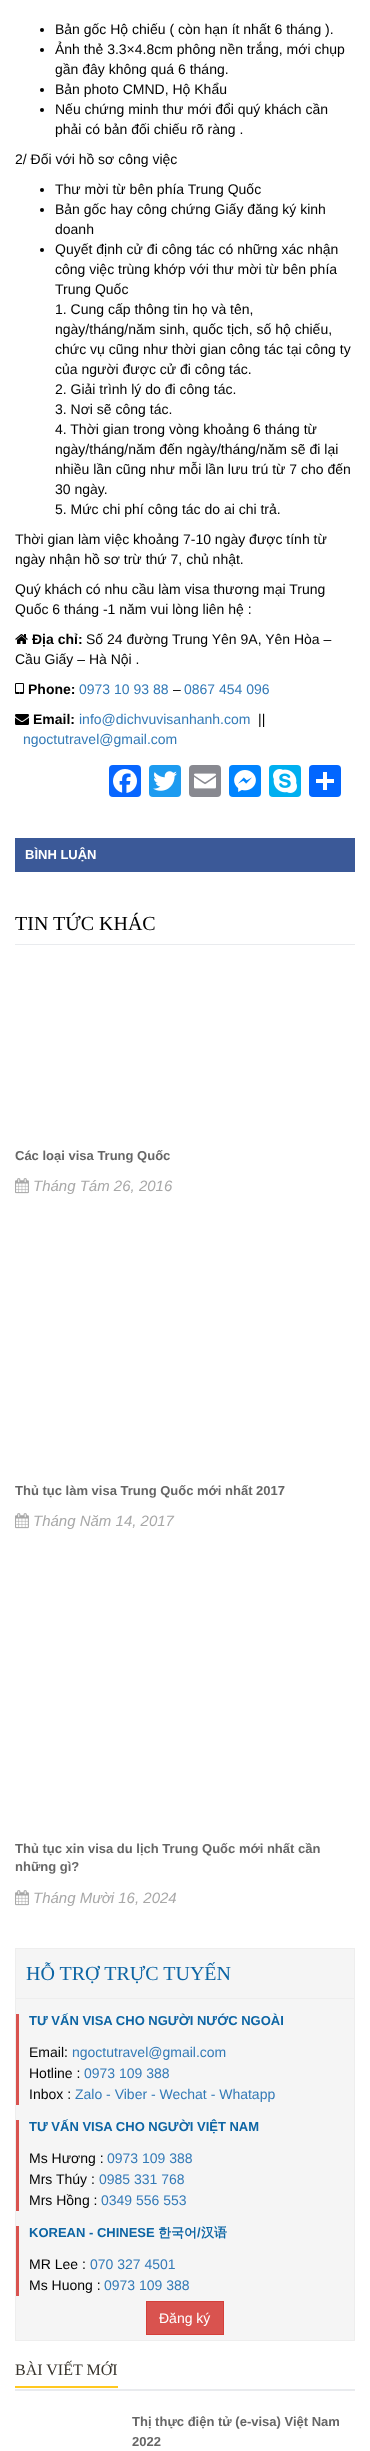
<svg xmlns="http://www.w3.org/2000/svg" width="370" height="2451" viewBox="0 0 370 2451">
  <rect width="100%" height="100%" fill="#ffffff"/>
  <circle cx="42" cy="30" r="2" fill="#000000"/>
  <text x="55" y="34" font-family="Liberation Sans" font-size="14" fill="#000000">Bản gốc Hộ chiếu ( còn hạn ít nhất 6 tháng ).</text>
  <circle cx="42" cy="50" r="2" fill="#000000"/>
  <text x="55" y="54" font-family="Liberation Sans" font-size="14" fill="#000000">Ảnh thẻ 3.3×4.8cm phông nền trắng, mới chụp</text>
  <text x="55" y="74" font-family="Liberation Sans" font-size="14" fill="#000000">gần đây không quá 6 tháng.</text>
  <circle cx="42" cy="90" r="2" fill="#000000"/>
  <text x="55" y="94" font-family="Liberation Sans" font-size="14" fill="#000000">Bản photo CMND, Hộ Khẩu</text>
  <circle cx="42" cy="110" r="2" fill="#000000"/>
  <text x="55" y="114" font-family="Liberation Sans" font-size="14" fill="#000000">Nếu chứng minh thư mới đổi quý khách cần</text>
  <text x="55" y="134" font-family="Liberation Sans" font-size="14" fill="#000000">phải có bản đối chiếu rõ ràng .</text>
  <text x="15" y="164" font-family="Liberation Sans" font-size="14" fill="#000000">2/ Đối với hồ sơ công việc</text>
  <circle cx="42" cy="190" r="2" fill="#000000"/>
  <text x="55" y="194" font-family="Liberation Sans" font-size="14" fill="#000000">Thư mời từ bên phía Trung Quốc</text>
  <circle cx="42" cy="210" r="2" fill="#000000"/>
  <text x="55" y="214" font-family="Liberation Sans" font-size="14" fill="#000000">Bản gốc hay công chứng Giấy đăng ký kinh</text>
  <text x="55" y="234" font-family="Liberation Sans" font-size="14" fill="#000000">doanh</text>
  <circle cx="42" cy="250" r="2" fill="#000000"/>
  <text x="55" y="254" font-family="Liberation Sans" font-size="14" fill="#000000">Quyết định cử đi công tác có những xác nhận</text>
  <text x="55" y="274" font-family="Liberation Sans" font-size="14" fill="#000000">công việc trùng khớp với thư mời từ bên phía</text>
  <text x="55" y="294" font-family="Liberation Sans" font-size="14" fill="#000000">Trung Quốc</text>
  <text x="55" y="314" font-family="Liberation Sans" font-size="14" fill="#000000">1. Cung cấp thông tin họ và tên,</text>
  <text x="55" y="334" font-family="Liberation Sans" font-size="14" fill="#000000">ngày/tháng/năm sinh, quốc tịch, số hộ chiếu,</text>
  <text x="55" y="354" font-family="Liberation Sans" font-size="14" fill="#000000">chức vụ cũng như thời gian công tác tại công ty</text>
  <text x="55" y="374" font-family="Liberation Sans" font-size="14" fill="#000000">của người được cử đi công tác.</text>
  <text x="55" y="394" font-family="Liberation Sans" font-size="14" fill="#000000">2. Giải trình lý do đi công tác.</text>
  <text x="55" y="414" font-family="Liberation Sans" font-size="14" fill="#000000">3. Nơi sẽ công tác.</text>
  <text x="55" y="434" font-family="Liberation Sans" font-size="14" fill="#000000">4. Thời gian trong vòng khoảng 6 tháng từ</text>
  <text x="55" y="454" font-family="Liberation Sans" font-size="14" fill="#000000">ngày/tháng/năm đến ngày/tháng/năm sẽ đi lại</text>
  <text x="55" y="474" font-family="Liberation Sans" font-size="14" fill="#000000">nhiều lần cũng như mỗi lần lưu trú từ 7 cho đến</text>
  <text x="55" y="494" font-family="Liberation Sans" font-size="14" fill="#000000">30 ngày.</text>
  <text x="55" y="514" font-family="Liberation Sans" font-size="14" fill="#000000">5. Mức chi phí công tác do ai chi trả.</text>
  <text x="15" y="544" font-family="Liberation Sans" font-size="14" fill="#000000">Thời gian làm việc khoảng 7-10 ngày được tính từ</text>
  <text x="15" y="564" font-family="Liberation Sans" font-size="14" fill="#000000">ngày nhận hồ sơ trừ thứ 7, chủ nhật.</text>
  <text x="15" y="594" font-family="Liberation Sans" font-size="14" fill="#000000">Quý khách có nhu cầu làm visa thương mại Trung</text>
  <text x="15" y="614" font-family="Liberation Sans" font-size="14" fill="#000000">Quốc 6 tháng -1 năm vui lòng liên hệ :</text>
  <image x="15" y="634" width="13" height="10" href="img1.png"/>
  <text x="32" y="644" font-family="Liberation Sans" font-size="14" font-weight="bold" fill="#000000">Địa chỉ:</text>
  <text x="86" y="644" font-family="Liberation Sans" font-size="14" fill="#000000">Số 24 đường Trung Yên 9A, Yên Hòa –</text>
  <text x="15" y="664" font-family="Liberation Sans" font-size="14" fill="#000000">Cầu Giấy – Hà Nội .</text>
  <image x="15" y="683" width="9" height="11" href="img2.png"/>
  <text x="28" y="694" font-family="Liberation Sans" font-size="14" font-weight="bold" fill="#000000">Phone:</text>
  <text x="79" y="694" font-family="Liberation Sans" font-size="14" fill="#337ab7">0973 10 93 88</text>
  <text x="173" y="694" font-family="Liberation Sans" font-size="14" fill="#000000">–</text>
  <text x="184" y="694" font-family="Liberation Sans" font-size="14" fill="#337ab7">0867 454 096</text>
  <image x="15" y="714" width="14" height="11" href="img3.png"/>
  <text x="33" y="724" font-family="Liberation Sans" font-size="14" font-weight="bold" fill="#000000">Email:</text>
  <text x="79" y="724" font-family="Liberation Sans" font-size="14" fill="#337ab7">info@dichvuvisanhanh.com</text>
  <text x="258" y="724" font-family="Liberation Sans" font-size="14" fill="#000000">||</text>
  <text x="23" y="744" font-family="Liberation Sans" font-size="14" fill="#337ab7">ngoctutravel@gmail.com</text>
  <rect x="109" y="765" width="32" height="32" rx="4" fill="#0866ff"/>
  <image x="113" y="769" width="24" height="24" href="img4.png"/>
  <rect x="149" y="765" width="32" height="32" rx="4" fill="#1d9bf0"/>
  <image x="153" y="771" width="24" height="20" href="img5.png"/>
  <rect x="189" y="765" width="32" height="32" rx="4" fill="#888990"/>
  <image x="194" y="773" width="22" height="16" href="img6.png"/>
  <rect x="229" y="765" width="32" height="32" rx="4" fill="#0084ff"/>
  <image x="234" y="770" width="22" height="22" href="img7.png"/>
  <rect x="269" y="765" width="32" height="32" rx="4" fill="#00aff0"/>
  <image x="273" y="769" width="24" height="24" href="img8.png"/>
  <rect x="309" y="765" width="32" height="32" rx="4" fill="#0166ff"/>
  <rect x="323" y="772" width="4" height="18" fill="#ffffff"/>
  <rect x="316" y="779" width="18" height="4" fill="#ffffff"/>
  <rect x="15" y="838" width="340" height="34" fill="#3b5998"/>
  <text x="25" y="859" font-family="Liberation Sans" font-size="13" font-weight="bold" fill="#ffffff">BÌNH LUẬN</text>
  <rect x="15" y="944" width="340" height="1" fill="#e9ebee"/>
  <text x="15" y="930" font-family="Liberation Serif" font-size="20" fill="#000000">TIN TỨC KHÁC</text>
  <text x="15" y="1160" font-family="Liberation Sans" font-size="13" font-weight="bold" fill="#666666">Các loại visa Trung Quốc</text>
  <image x="15" y="1178" width="14" height="16" href="img9.png"/>
  <text x="33" y="1191" font-family="Liberation Sans" font-size="15" font-style="italic" fill="#a8a8a8">Tháng Tám 26, 2016</text>
  <text x="15" y="1495" font-family="Liberation Sans" font-size="13" font-weight="bold" fill="#666666">Thủ tục làm visa Trung Quốc mới nhất 2017</text>
  <image x="15" y="1513" width="14" height="16" href="img9.png"/>
  <text x="33" y="1526" font-family="Liberation Sans" font-size="15" font-style="italic" fill="#a8a8a8">Tháng Năm 14, 2017</text>
  <text x="15" y="1853" font-family="Liberation Sans" font-size="13" font-weight="bold" fill="#666666">Thủ tục xin visa du lịch Trung Quốc mới nhất cần</text>
  <text x="15" y="1871" font-family="Liberation Sans" font-size="13" font-weight="bold" fill="#666666">những gì?</text>
  <image x="15" y="1890" width="14" height="16" href="img9.png"/>
  <text x="33" y="1903" font-family="Liberation Sans" font-size="15" font-style="italic" fill="#a8a8a8">Tháng Mười 16, 2024</text>
  <rect x="15.5" y="1948.5" width="339" height="392" fill="#f5f5f5" stroke="#eeeeee"/>
  <rect x="16" y="1998" width="338" height="1" fill="#eeeeee"/>
  <text x="26" y="1980" font-family="Liberation Serif" font-size="20" fill="#0d65a4">HỖ TRỢ TRỰC TUYẾN</text>
  <rect x="16" y="2014" width="3" height="91" fill="#d9534f"/>
  <text x="29" y="2025" font-family="Liberation Sans" font-size="13" font-weight="bold" fill="#0d65a4">TƯ VẤN VISA CHO NGƯỜI NƯỚC NGOÀI</text>
  <text x="29" y="2057" font-family="Liberation Sans" font-size="14" fill="#000000">Email:</text>
  <text x="72" y="2057" font-family="Liberation Sans" font-size="14" fill="#337ab7">ngoctutravel@gmail.com</text>
  <text x="29" y="2078" font-family="Liberation Sans" font-size="14" fill="#000000">Hotline :</text>
  <text x="84" y="2078" font-family="Liberation Sans" font-size="14" fill="#337ab7">0973 109 388</text>
  <text x="29" y="2099" font-family="Liberation Sans" font-size="14" fill="#000000">Inbox :</text>
  <text x="75" y="2099" font-family="Liberation Sans" font-size="14" fill="#337ab7">Zalo - Viber - Wechat - Whatapp</text>
  <rect x="16" y="2120" width="3" height="91" fill="#d9534f"/>
  <text x="29" y="2131" font-family="Liberation Sans" font-size="13" font-weight="bold" fill="#0d65a4">TƯ VẤN VISA CHO NGƯỜI VIỆT NAM</text>
  <text x="29" y="2163" font-family="Liberation Sans" font-size="14" fill="#000000">Ms Hương :</text>
  <text x="107" y="2163" font-family="Liberation Sans" font-size="14" fill="#337ab7">0973 109 388</text>
  <text x="29" y="2184" font-family="Liberation Sans" font-size="14" fill="#000000">Mrs Thúy :</text>
  <text x="99" y="2184" font-family="Liberation Sans" font-size="14" fill="#337ab7">0985 331 768</text>
  <text x="29" y="2205" font-family="Liberation Sans" font-size="14" fill="#000000">Mrs Hồng :</text>
  <text x="101" y="2205" font-family="Liberation Sans" font-size="14" fill="#337ab7">0349 556 553</text>
  <rect x="16" y="2226" width="3" height="70" fill="#d9534f"/>
  <text x="29" y="2237" font-family="Liberation Sans" font-size="13" font-weight="bold" fill="#0d65a4">KOREAN - CHINESE</text>
  <text x="158" y="2237" font-family="WenQuanYi Zen Hei" font-size="13" font-weight="bold" fill="#0d65a4">한국어 汉语</text>
  <text x="197" y="2237" font-family="Liberation Sans" font-size="13" font-weight="bold" fill="#0d65a4">/</text>
  <text x="29" y="2269" font-family="Liberation Sans" font-size="14" fill="#000000">MR Lee :</text>
  <text x="90" y="2269" font-family="Liberation Sans" font-size="14" fill="#337ab7">070 327 4501</text>
  <text x="29" y="2290" font-family="Liberation Sans" font-size="14" fill="#000000">Ms Huong :</text>
  <text x="104" y="2290" font-family="Liberation Sans" font-size="14" fill="#337ab7">0973 109 388</text>
  <rect x="146.5" y="2301.5" width="77" height="33" fill="#d9534f" stroke="#d43f3a"/>
  <text x="159" y="2323" font-family="Liberation Sans" font-size="14" fill="#ffffff">Đăng ký</text>
  <rect x="15" y="2389" width="340" height="2" fill="#e9ebee"/>
  <text x="15" y="2375" font-family="Liberation Serif" font-size="16" fill="#37332c">BÀI VIẾT MỚI</text>
  <rect x="15" y="2386" width="103" height="2" fill="#ffc820"/>
  <text x="132" y="2426" font-family="Liberation Sans" font-size="13" font-weight="bold" fill="#666666">Thị thực điện tử (e-visa) Việt Nam</text>
  <text x="132" y="2446" font-family="Liberation Sans" font-size="13" font-weight="bold" fill="#666666">2022</text>
</svg>
